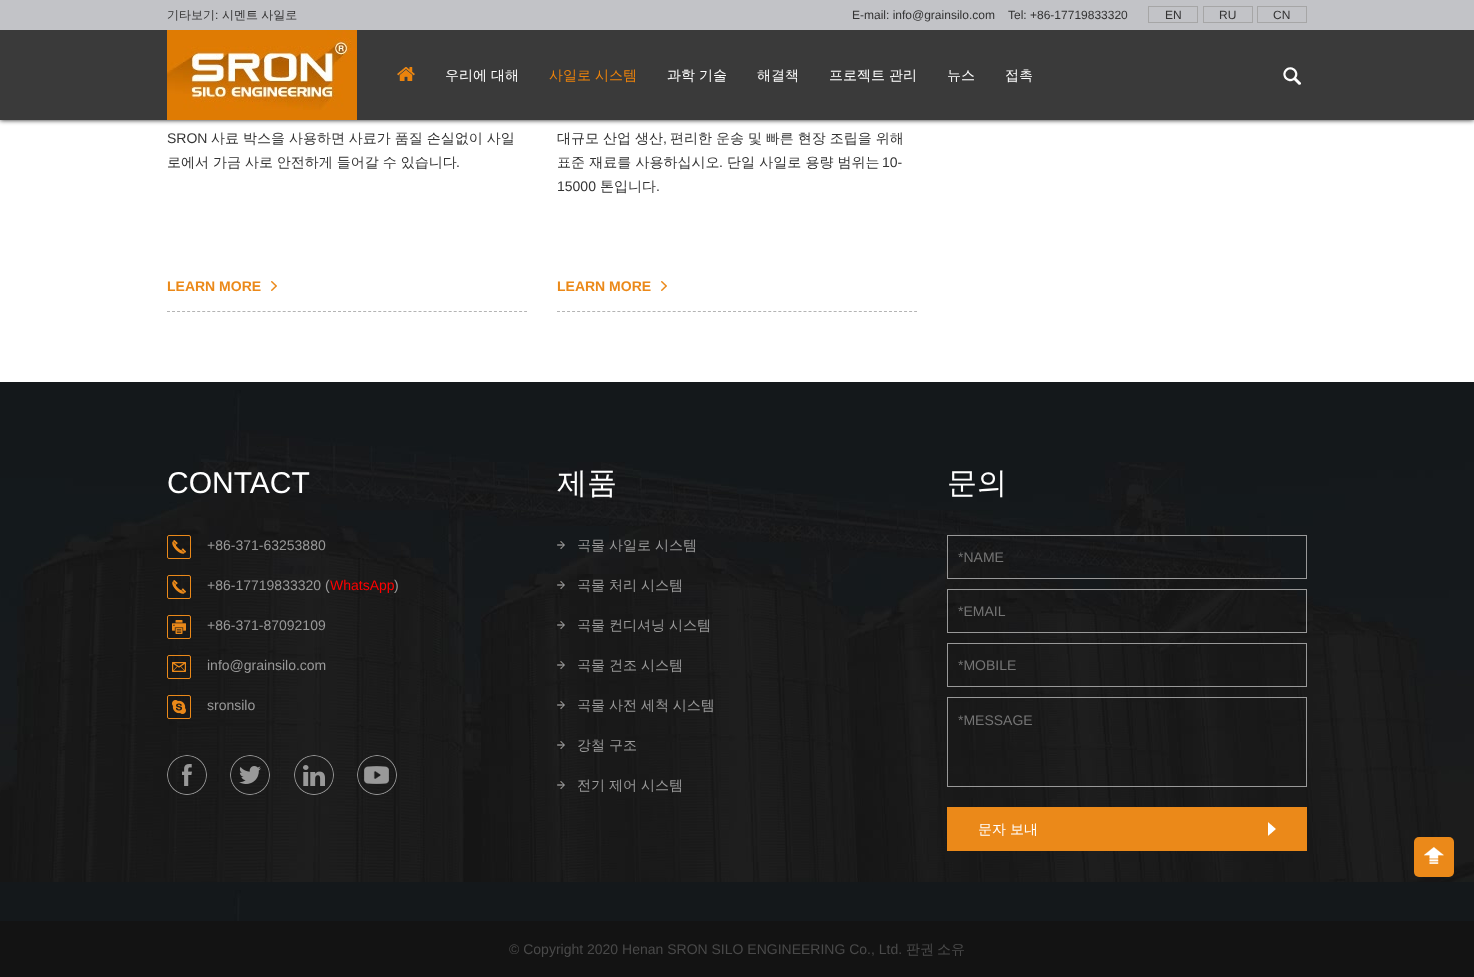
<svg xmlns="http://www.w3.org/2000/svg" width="1474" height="977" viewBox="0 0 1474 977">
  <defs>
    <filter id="blur1" x="-50%" y="-200%" width="200%" height="500%"><feGaussianBlur stdDeviation="2.5"/></filter>
  </defs>
  <rect width="100%" height="100%" fill="#ffffff"/>
  <rect x="0" y="0" width="1474" height="120" fill="#000000" fill-opacity="0.9" filter="url(#blur1)"/>
  <rect x="0" y="30" width="1474" height="90" fill="#3a3a3a"/>
  <rect x="0" y="0" width="1474" height="30" fill="#c2c3c7"/>
  <text x="167" y="19" font-family="WenQuanYi Zen Hei" font-size="12" font-weight="500" fill="#333333">기타보기</text>
  <text x="215" y="19" font-family="Liberation Sans" font-size="12" fill="#333333">:</text>
  <text x="222" y="19" word-spacing="-0.25" font-family="WenQuanYi Zen Hei" font-size="12" font-weight="500" fill="#333333">시멘트 사일로</text>
  <text x="852" y="19" font-family="Liberation Sans" font-size="12" fill="#333333">E-mail: info@grainsilo.com</text>
  <text x="1008" y="19" font-family="Liberation Sans" font-size="12" fill="#333333">Tel: +86-17719833320</text>
  <rect x="1148.5" y="6.5" width="49" height="16" fill="none" stroke="#a6a6a6"/>
  <text x="1165" y="19" font-family="Liberation Sans" font-size="12" fill="#333333">EN</text>
  <rect x="1203.5" y="6.5" width="49" height="16" fill="none" stroke="#a6a6a6"/>
  <text x="1219" y="19" font-family="Liberation Sans" font-size="12" fill="#333333">RU</text>
  <rect x="1257.5" y="6.5" width="49" height="16" fill="none" stroke="#a6a6a6"/>
  <text x="1273" y="19" font-family="Liberation Sans" font-size="12" fill="#333333">CN</text>
  <image x="167" y="30" width="190" height="90" href="img1.png"/>
  <image x="397" y="67" width="18" height="14" href="img2.png"/>
  <text x="445" y="80" word-spacing="-0.25" font-family="WenQuanYi Zen Hei" font-size="14" font-weight="500" fill="#ffffff">우리에 대해</text>
  <text x="549" y="80" word-spacing="-0.25" font-family="WenQuanYi Zen Hei" font-size="14" font-weight="500" fill="#ec830b">사일로 시스템</text>
  <text x="667" y="80" word-spacing="-0.25" font-family="WenQuanYi Zen Hei" font-size="14" font-weight="500" fill="#ffffff">과학 기술</text>
  <text x="757" y="80" font-family="WenQuanYi Zen Hei" font-size="14" font-weight="500" fill="#ffffff">해결책</text>
  <text x="829" y="80" word-spacing="-0.25" font-family="WenQuanYi Zen Hei" font-size="14" font-weight="500" fill="#ffffff">프로젝트 관리</text>
  <text x="947" y="80" font-family="WenQuanYi Zen Hei" font-size="14" font-weight="500" fill="#ffffff">뉴스</text>
  <text x="1005" y="80" font-family="WenQuanYi Zen Hei" font-size="14" font-weight="500" fill="#ffffff">접촉</text>
  <image x="1283" y="67" width="18" height="18" href="img3.png"/>
  <path d="M167 311.5H527" fill="none" stroke="#b4b4b4" stroke-dasharray="3 2.03"/>
  <text x="167" y="143" font-family="Liberation Sans" font-size="14" fill="#333333">SRON</text>
  <text x="211" y="143" word-spacing="-0.25" font-family="WenQuanYi Zen Hei" font-size="14" font-weight="500" fill="#333333">사료 박스을 사용하면 사료가 품질 손실없이 사일</text>
  <text x="167" y="167" word-spacing="-0.25" font-family="WenQuanYi Zen Hei" font-size="14" font-weight="500" fill="#333333">로에서 가금 사로 안전하게 들어갈 수 있습니다</text>
  <text x="456" y="167" font-family="Liberation Sans" font-size="14" fill="#333333">.</text>
  <text x="167" y="291" font-family="Liberation Sans" font-size="14" font-weight="bold" fill="#eb8919">LEARN MORE</text>
  <image x="271" y="281" width="6" height="10" href="img4.png"/>
  <path d="M557 311.5H917" fill="none" stroke="#b4b4b4" stroke-dasharray="3 2.03"/>
  <text x="557" y="143" word-spacing="-0.25" font-family="WenQuanYi Zen Hei" font-size="14" font-weight="500" fill="#333333">대규모 산업 생산</text>
  <text x="663" y="143" font-family="Liberation Sans" font-size="14" fill="#333333">,</text>
  <text x="670" y="143" word-spacing="-0.25" font-family="WenQuanYi Zen Hei" font-size="14" font-weight="500" fill="#333333">편리한 운송 및 빠른 현장 조립을 위해</text>
  <text x="557" y="167" font-family="WenQuanYi Zen Hei" font-size="14" font-weight="500" fill="#333333">표준 재료를 사용하십시오</text>
  <text x="719" y="167" font-family="Liberation Sans" font-size="14" fill="#333333">.</text>
  <text x="727" y="167" font-family="WenQuanYi Zen Hei" font-size="14" font-weight="500" fill="#333333">단일 사일로 용량 범위는</text>
  <text x="882" y="167" font-family="Liberation Sans" font-size="14" fill="#333333">10-</text>
  <text x="557" y="191" font-family="Liberation Sans" font-size="14" fill="#333333">15000</text>
  <text x="600" y="191" font-family="WenQuanYi Zen Hei" font-size="14" font-weight="500" fill="#333333">톤입니다</text>
  <text x="656" y="191" font-family="Liberation Sans" font-size="14" fill="#333333">.</text>
  <text x="557" y="291" font-family="Liberation Sans" font-size="14" font-weight="bold" fill="#eb8919">LEARN MORE</text>
  <image x="661" y="281" width="6" height="10" href="img4.png"/>
  <image x="0" y="382" width="1474" height="539" href="img5.png"/>
  <text x="167" y="493" font-family="Liberation Sans" font-size="30" fill="#ffffff">CONTACT</text>
  <image x="172" y="540" width="14" height="14" href="img6.png"/>
  <rect x="167.5" y="535.5" width="23" height="23" rx="1.5" fill="none" stroke="#eb8919"/>
  <text x="207" y="550" font-family="Liberation Sans" font-size="14" fill="#999999">+86-371-63253880</text>
  <image x="172" y="580" width="14" height="14" href="img7.png"/>
  <rect x="167.5" y="575.5" width="23" height="23" rx="1.5" fill="none" stroke="#eb8919"/>
  <text x="207" y="590" font-family="Liberation Sans" font-size="14" fill="#999999">+86-17719833320 (</text>
  <text x="330" y="590" font-family="Liberation Sans" font-size="14" fill="#ff0000">WhatsApp</text>
  <text x="394" y="590" font-family="Liberation Sans" font-size="14" fill="#999999">)</text>
  <image x="172" y="620" width="14" height="14" href="img8.png"/>
  <rect x="167.5" y="615.5" width="23" height="23" rx="1.5" fill="none" stroke="#eb8919"/>
  <text x="207" y="630" font-family="Liberation Sans" font-size="14" fill="#999999">+86-371-87092109</text>
  <image x="172" y="662" width="14" height="10" href="img9.png"/>
  <rect x="167.5" y="655.5" width="23" height="23" rx="1.5" fill="none" stroke="#eb8919"/>
  <text x="207" y="670" font-family="Liberation Sans" font-size="14" fill="#999999">info@grainsilo.com</text>
  <image x="172" y="700" width="14" height="14" href="img10.png"/>
  <rect x="167.5" y="695.5" width="23" height="23" rx="1.5" fill="none" stroke="#eb8919"/>
  <text x="207" y="710" font-family="Liberation Sans" font-size="14" fill="#999999">sronsilo</text>
  <image x="167" y="755" width="40" height="40" href="img11.png"/>
  <image x="230" y="755" width="40" height="40" href="img12.png"/>
  <image x="294" y="755" width="40" height="40" href="img13.png"/>
  <image x="357" y="755" width="40" height="40" href="img14.png"/>
  <text x="557" y="493" font-family="WenQuanYi Zen Hei" font-size="30" font-weight="500" fill="#ffffff">제품</text>
  <image x="557" y="541" width="8" height="8" href="img15.png"/>
  <text x="577" y="550" word-spacing="-0.25" font-family="WenQuanYi Zen Hei" font-size="14" font-weight="500" fill="#999999">곡물 사일로 시스템</text>
  <image x="557" y="581" width="8" height="8" href="img16.png"/>
  <text x="577" y="590" word-spacing="-0.25" font-family="WenQuanYi Zen Hei" font-size="14" font-weight="500" fill="#999999">곡물 처리 시스템</text>
  <image x="557" y="621" width="8" height="8" href="img17.png"/>
  <text x="577" y="630" word-spacing="-0.25" font-family="WenQuanYi Zen Hei" font-size="14" font-weight="500" fill="#999999">곡물 컨디셔닝 시스템</text>
  <image x="557" y="661" width="8" height="8" href="img18.png"/>
  <text x="577" y="670" word-spacing="-0.25" font-family="WenQuanYi Zen Hei" font-size="14" font-weight="500" fill="#999999">곡물 건조 시스템</text>
  <image x="557" y="701" width="8" height="8" href="img19.png"/>
  <text x="577" y="710" word-spacing="-0.25" font-family="WenQuanYi Zen Hei" font-size="14" font-weight="500" fill="#999999">곡물 사전 세척 시스템</text>
  <image x="557" y="741" width="8" height="8" href="img20.png"/>
  <text x="577" y="750" word-spacing="-0.25" font-family="WenQuanYi Zen Hei" font-size="14" font-weight="500" fill="#999999">강철 구조</text>
  <image x="557" y="781" width="8" height="8" href="img21.png"/>
  <text x="577" y="790" word-spacing="-0.25" font-family="WenQuanYi Zen Hei" font-size="14" font-weight="500" fill="#999999">전기 제어 시스템</text>
  <text x="947" y="493" font-family="WenQuanYi Zen Hei" font-size="30" font-weight="500" fill="#ffffff">문의</text>
  <rect x="947.5" y="535.5" width="359" height="43" fill="none" stroke="#999999"/>
  <text x="958" y="562" font-family="Liberation Sans" font-size="14" fill="#757575">*NAME</text>
  <rect x="947.5" y="589.5" width="359" height="43" fill="none" stroke="#999999"/>
  <text x="958" y="616" font-family="Liberation Sans" font-size="14" fill="#757575">*EMAIL</text>
  <rect x="947.5" y="643.5" width="359" height="43" fill="none" stroke="#999999"/>
  <text x="958" y="670" font-family="Liberation Sans" font-size="14" fill="#757575">*MOBILE</text>
  <rect x="947.5" y="697.5" width="359" height="89" fill="none" stroke="#999999"/>
  <text x="958" y="725" font-family="Liberation Sans" font-size="14" fill="#757575">*MESSAGE</text>
  <rect x="947" y="807" width="360" height="44" fill="#eb8919"/>
  <image x="1268" y="822" width="8" height="14" href="img22.png"/>
  <text x="978" y="834" word-spacing="-0.25" font-family="WenQuanYi Zen Hei" font-size="14" font-weight="500" fill="#ffffff">문자 보내</text>
  <rect x="0" y="921" width="1474" height="56" fill="#131313"/>
  <text x="509" y="954" font-family="Liberation Sans" font-size="14" fill="#4a4a4a">© Copyright 2020 Henan SRON SILO ENGINEERING Co., Ltd.</text>
  <text x="906" y="954" font-family="WenQuanYi Zen Hei" font-size="14" font-weight="500" fill="#4a4a4a">판권</text>
  <text x="937" y="954" font-family="WenQuanYi Zen Hei" font-size="14" font-weight="500" fill="#4a4a4a">소유</text>
  <rect x="1414" y="837" width="40" height="40" rx="5" fill="#eb8919"/>
  <image x="1424" y="847" width="20" height="17" href="img23.png"/>
</svg>
